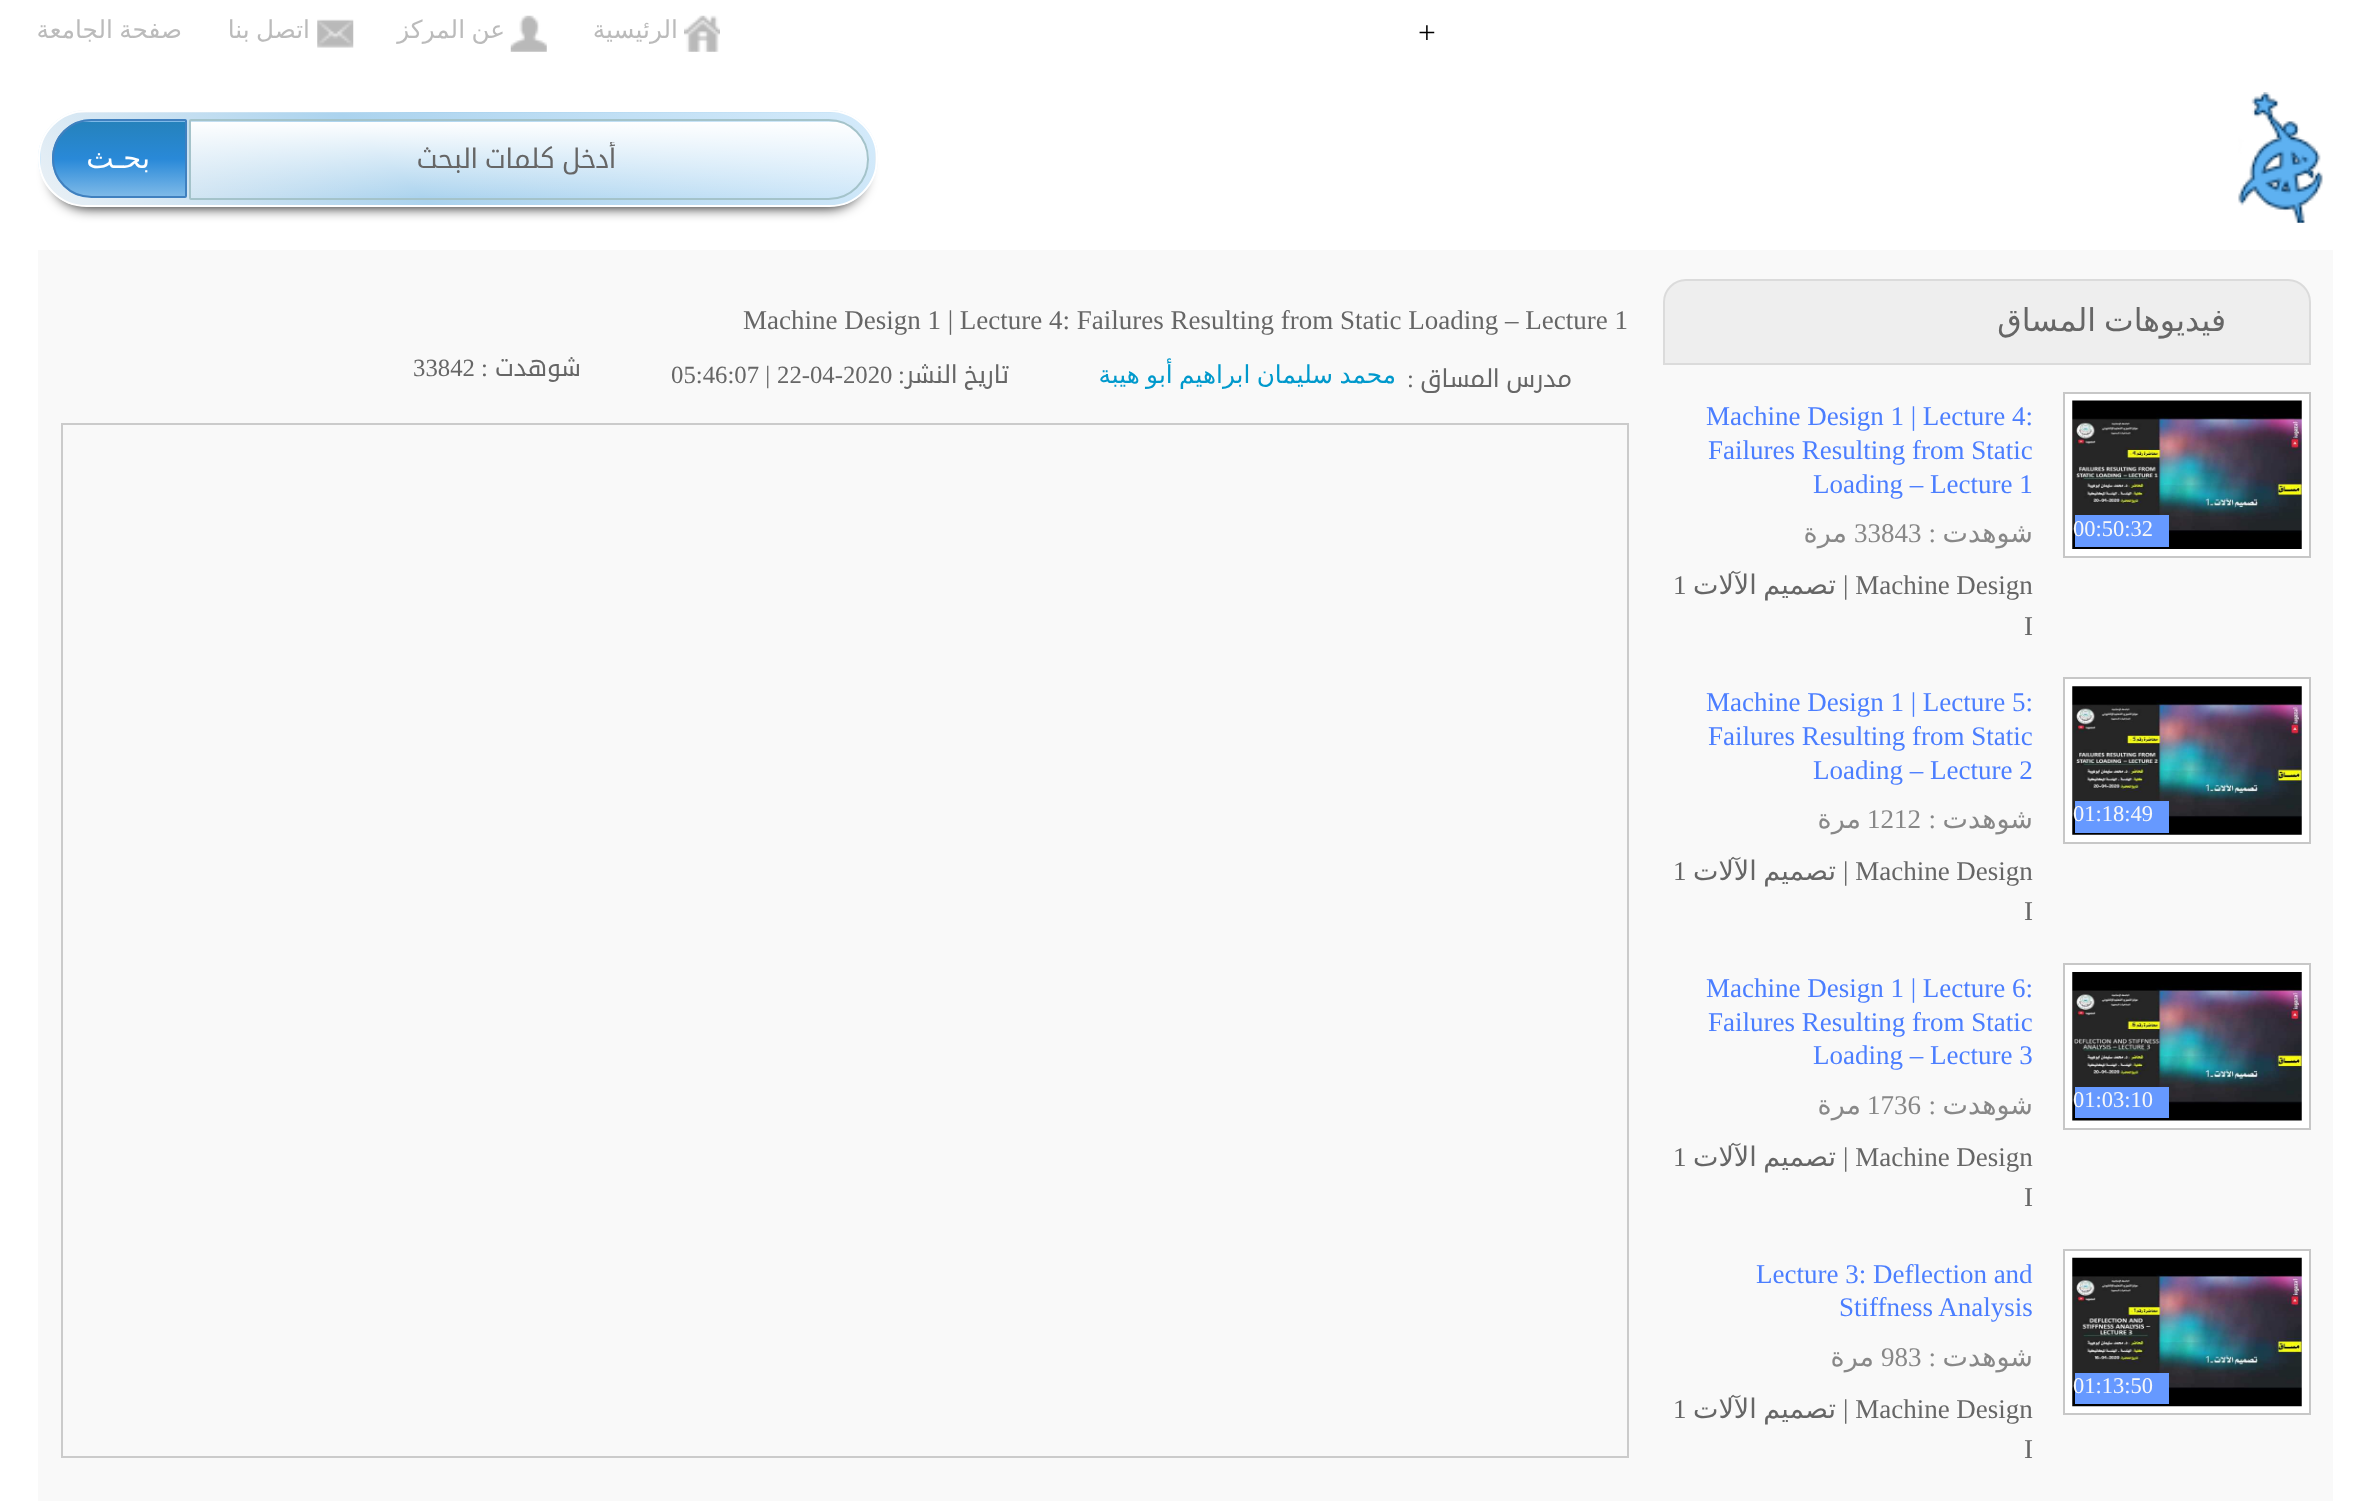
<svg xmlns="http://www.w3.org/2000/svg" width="2368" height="1501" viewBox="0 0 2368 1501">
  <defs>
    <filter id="blur1" x="-50%" y="-200%" width="200%" height="500%"><feGaussianBlur stdDeviation="7"/></filter>
    <clipPath id="clip1"><rect x="38" y="110" width="840" height="97" rx="48.5"/></clipPath>
    <linearGradient id="g1" gradientUnits="userSpaceOnUse" x1="226" y1="298" x2="690" y2="-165"><stop offset="0" stop-color="#ebf1f6"/><stop offset="0.42" stop-color="#abd3ee"/><stop offset="1" stop-color="#d5ebfb"/></linearGradient>
    <linearGradient id="g2" gradientUnits="userSpaceOnUse" x1="-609" y1="390" x2="-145" y2="-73"><stop offset="0" stop-color="#ebf1f6"/><stop offset="0.42" stop-color="#abd3ee"/><stop offset="1" stop-color="#d5ebfb"/></linearGradient>
    <linearGradient id="g3" gradientUnits="userSpaceOnUse" x1="226" y1="390" x2="690" y2="-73"><stop offset="0" stop-color="#ebf1f6"/><stop offset="0.42" stop-color="#abd3ee"/><stop offset="1" stop-color="#d5ebfb"/></linearGradient>
    <linearGradient id="g4" gradientUnits="userSpaceOnUse" x1="1061" y1="390" x2="1524" y2="-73"><stop offset="0" stop-color="#ebf1f6"/><stop offset="0.42" stop-color="#abd3ee"/><stop offset="1" stop-color="#d5ebfb"/></linearGradient>
    <clipPath id="clip2"><path d="M91.5 119H185C186 119 187 120 187 121V196C187 197 186 198 185 198H91.5C69.5 198 52 180.5 52 158.5C52 136.5 69.5 119 91.5 119Z"/></clipPath>
    <linearGradient id="g5" gradientUnits="userSpaceOnUse" x1="119" y1="47" x2="119" y2="122"><stop offset="0" stop-color="#2582bc"/><stop offset="0.5" stop-color="#2989d8"/><stop offset="1" stop-color="#7db9e8"/></linearGradient>
    <linearGradient id="g6" gradientUnits="userSpaceOnUse" x1="119" y1="122" x2="119" y2="196"><stop offset="0" stop-color="#2582bc"/><stop offset="0.5" stop-color="#2989d8"/><stop offset="1" stop-color="#7db9e8"/></linearGradient>
    <linearGradient id="g7" gradientUnits="userSpaceOnUse" x1="529" y1="45" x2="529" y2="122"><stop offset="0" stop-color="#ffffff"/><stop offset="1" stop-color="#ffffff" stop-opacity="0"/></linearGradient>
    <clipPath id="clip3"><path d="M191 119H828.5C851 119 869 137 869 159.5C869 182 851 200 828.5 200H191C190 200 189 199 189 198V121C189 120 190 119 191 119Z"/></clipPath>
    <linearGradient id="g8" gradientUnits="userSpaceOnUse" x1="529" y1="121" x2="529" y2="198"><stop offset="0" stop-color="#ffffff"/><stop offset="1" stop-color="#ffffff" stop-opacity="0"/></linearGradient>
    <clipPath id="clip4"><rect x="203" y="142" width="630" height="38"/></clipPath>
  </defs>
  <rect width="100%" height="100%" fill="#ffffff"/>
  <text x="182" y="38" word-spacing="-1.5" font-family="DejaVu Sans" font-size="24.75" direction="rtl" fill="#bbbbbb">صفحة الجامعة</text>
  <text x="310" y="38" word-spacing="-1.5" font-family="DejaVu Sans" font-size="24.75" direction="rtl" fill="#bbbbbb">اتصل بنا</text>
  <image x="317" y="19" width="37" height="29" href="img1.png"/>
  <text x="505" y="38" word-spacing="-1.5" font-family="DejaVu Sans" font-size="24.75" direction="rtl" fill="#bbbbbb">عن المركز</text>
  <image x="510" y="15" width="37" height="37" href="img2.png"/>
  <text x="678" y="38" font-family="DejaVu Sans" font-size="24.75" direction="rtl" fill="#bbbbbb">الرئيسية</text>
  <image x="684" y="15" width="36" height="37" href="img3.png"/>
  <text x="1418" y="43" font-family="Liberation Serif" font-size="31.5" fill="#000000">+</text>
  <rect x="52" y="137" width="812" height="70" rx="35" fill="#000000" filter="url(#blur1)"/>
  <g clip-path="url(#clip1)">
    <rect x="70" y="110" width="776" height="3" fill="url(#g1)"/>
    <rect x="38" y="142" width="3" height="33" fill="url(#g2)"/>
    <rect x="41" y="113" width="834" height="92" fill="url(#g3)"/>
    <rect x="875" y="142" width="3" height="33" fill="url(#g4)"/>
  </g>
  <rect x="39" y="111" width="838" height="95" rx="47.5" fill="none" stroke="#ffffff" stroke-width="2"/>
  <g clip-path="url(#clip2)">
    <path d="M52 119H185C186 119 187 120 187 121V122H52Z" fill="url(#g5)"/>
    <rect x="52" y="122" width="133" height="74" fill="url(#g6)"/>
  </g>
  <path d="M91.5 120H185C185.5 120 186 120.5 186 121V196C186 196.5 185.5 197 185 197H91.5C70 197 53 180 53 158.5C53 137 70 120 91.5 120Z" fill="none" stroke="#4080bf" stroke-width="2"/>
  <text x="150" y="168" font-family="DejaVu Sans" font-size="29" direction="rtl" fill="#ffffff">بحـث</text>
  <rect x="336" y="119" width="28" height="1" fill="url(#g7)"/>
  <g clip-path="url(#clip3)">
    <rect x="191" y="122" width="678" height="74" fill="url(#g8)"/>
  </g>
  <path d="M191 120H828.5C850.5 120 868 137.5 868 159.5C868 181.5 850.5 199 828.5 199H191C190.5 199 190 198.5 190 198V121C190 120.5 190.5 120 191 120Z" fill="none" stroke="#a4c3ca" stroke-width="2"/>
  <g clip-path="url(#clip4)">
    <text x="616" y="168" font-family="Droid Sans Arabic" font-size="27" direction="rtl" fill="#666666">أدخل كلمات البحث</text>
  </g>
  <image x="2238" y="92" width="85" height="131" href="img4.png"/>
  <rect x="38" y="250" width="2295" height="1251" fill="#f9f9f9"/>
  <text x="743" y="329" font-family="Liberation Serif" font-size="27" fill="#666666">Machine Design 1 | Lecture 4: Failures Resulting from Static Loading – Lecture 1</text>
  <text x="413" y="376" font-family="Liberation Serif" font-size="24.75" fill="#666666">33842</text>
  <text x="488" y="376" font-family="Liberation Serif" font-size="24.75" direction="rtl" fill="#666666">:</text>
  <text x="581" y="376" font-family="Droid Sans Arabic" font-size="24.75" direction="rtl" fill="#666666">شوهدت</text>
  <text x="671" y="383" font-family="Liberation Serif" font-size="24.75" fill="#666666">05:46:07 |</text>
  <text x="777" y="383" font-family="Liberation Serif" font-size="24.75" fill="#666666">22-04-2020</text>
  <text x="905" y="383" font-family="Liberation Serif" font-size="24.75" direction="rtl" fill="#666666">:</text>
  <text x="1009" y="383" font-family="Droid Sans Arabic" font-size="24.75" direction="rtl" fill="#666666">تاريخ النشر</text>
  <text x="1396" y="383" word-spacing="-1.5" font-family="DejaVu Sans" font-size="24.75" direction="rtl" fill="#0099cc">محمد سليمان ابراهيم أبو هيبة</text>
  <text x="1407" y="387" font-family="Liberation Serif" font-size="24.75" fill="#666666">:</text>
  <text x="1572" y="387" font-family="Droid Sans Arabic" font-size="24.75" direction="rtl" fill="#666666">مدرس المساق</text>
  <rect x="62" y="424" width="1566" height="1033" fill="none" stroke="#cbcbcb" stroke-width="2"/>
  <path d="M1686 280H2288C2300 280 2310 290 2310 302V364H1664V302C1664 290 1674 280 1686 280Z" fill="#eeeeee" stroke="#dbdbdb" stroke-width="2"/>
  <text x="2226" y="331" word-spacing="-2" font-family="DejaVu Sans" font-size="31.5" direction="rtl" fill="#666666">فيديوهات المساق</text>
  <text x="1706" y="425" font-family="Liberation Serif" font-size="27" fill="#4b7eff">Machine Design 1 | Lecture 4:</text>
  <text x="1708" y="459" font-family="Liberation Serif" font-size="27" fill="#4b7eff">Failures Resulting from Static</text>
  <text x="1813" y="493" font-family="Liberation Serif" font-size="27" fill="#4b7eff">Loading – Lecture 1</text>
  <text x="1847" y="542" font-family="DejaVu Sans" font-size="27" direction="rtl" fill="#888888">مرة</text>
  <text x="1854" y="542" font-family="Liberation Serif" font-size="27" fill="#888888">33843</text>
  <text x="1936" y="542" font-family="Liberation Serif" font-size="27" direction="rtl" fill="#888888">:</text>
  <text x="2033" y="542" font-family="DejaVu Sans" font-size="27" direction="rtl" fill="#888888">شوهدت</text>
  <text x="1673" y="594" font-family="Liberation Serif" font-size="27" fill="#666666">1</text>
  <text x="1836" y="594" word-spacing="-2" font-family="DejaVu Sans" font-size="27" direction="rtl" fill="#666666">تصميم الآلات</text>
  <text x="1843" y="594" font-family="Liberation Serif" font-size="27" fill="#666666">| Machine Design</text>
  <text x="2024" y="635" font-family="Liberation Serif" font-size="27" fill="#666666">I</text>
  <rect x="2064" y="393" width="246" height="164" fill="#ffffff" stroke="#c7c7c7" stroke-width="2"/>
  <image x="2072" y="400" width="230" height="149" href="img5.png"/>
  <rect x="2075" y="515" width="94" height="32" fill="#6699ff"/>
  <text x="2073" y="536" font-family="Liberation Serif" font-size="22.5" fill="#f8f8f8">00:50:32</text>
  <text x="1706" y="711" font-family="Liberation Serif" font-size="27" fill="#4b7eff">Machine Design 1 | Lecture 5:</text>
  <text x="1708" y="745" font-family="Liberation Serif" font-size="27" fill="#4b7eff">Failures Resulting from Static</text>
  <text x="1813" y="779" font-family="Liberation Serif" font-size="27" fill="#4b7eff">Loading – Lecture 2</text>
  <text x="1861" y="828" font-family="DejaVu Sans" font-size="27" direction="rtl" fill="#888888">مرة</text>
  <text x="1867" y="828" font-family="Liberation Serif" font-size="27" fill="#888888">1212</text>
  <text x="1936" y="828" font-family="Liberation Serif" font-size="27" direction="rtl" fill="#888888">:</text>
  <text x="2033" y="828" font-family="DejaVu Sans" font-size="27" direction="rtl" fill="#888888">شوهدت</text>
  <text x="1673" y="880" font-family="Liberation Serif" font-size="27" fill="#666666">1</text>
  <text x="1836" y="880" word-spacing="-2" font-family="DejaVu Sans" font-size="27" direction="rtl" fill="#666666">تصميم الآلات</text>
  <text x="1843" y="880" font-family="Liberation Serif" font-size="27" fill="#666666">| Machine Design</text>
  <text x="2024" y="920" font-family="Liberation Serif" font-size="27" fill="#666666">I</text>
  <rect x="2064" y="678" width="246" height="165" fill="#ffffff" stroke="#c7c7c7" stroke-width="2"/>
  <image x="2072" y="686" width="230" height="149" href="img6.png"/>
  <rect x="2075" y="801" width="94" height="32" fill="#6699ff"/>
  <text x="2073" y="821" font-family="Liberation Serif" font-size="22.5" fill="#f8f8f8">01:18:49</text>
  <text x="1706" y="997" font-family="Liberation Serif" font-size="27" fill="#4b7eff">Machine Design 1 | Lecture 6:</text>
  <text x="1708" y="1031" font-family="Liberation Serif" font-size="27" fill="#4b7eff">Failures Resulting from Static</text>
  <text x="1813" y="1064" font-family="Liberation Serif" font-size="27" fill="#4b7eff">Loading – Lecture 3</text>
  <text x="1861" y="1114" font-family="DejaVu Sans" font-size="27" direction="rtl" fill="#888888">مرة</text>
  <text x="1867" y="1114" font-family="Liberation Serif" font-size="27" fill="#888888">1736</text>
  <text x="1936" y="1114" font-family="Liberation Serif" font-size="27" direction="rtl" fill="#888888">:</text>
  <text x="2033" y="1114" font-family="DejaVu Sans" font-size="27" direction="rtl" fill="#888888">شوهدت</text>
  <text x="1673" y="1166" font-family="Liberation Serif" font-size="27" fill="#666666">1</text>
  <text x="1836" y="1166" word-spacing="-2" font-family="DejaVu Sans" font-size="27" direction="rtl" fill="#666666">تصميم الآلات</text>
  <text x="1843" y="1166" font-family="Liberation Serif" font-size="27" fill="#666666">| Machine Design</text>
  <text x="2024" y="1206" font-family="Liberation Serif" font-size="27" fill="#666666">I</text>
  <rect x="2064" y="964" width="246" height="165" fill="#ffffff" stroke="#c7c7c7" stroke-width="2"/>
  <image x="2072" y="972" width="230" height="149" href="img7.png"/>
  <rect x="2075" y="1087" width="94" height="31" fill="#6699ff"/>
  <text x="2073" y="1107" font-family="Liberation Serif" font-size="22.5" fill="#f8f8f8">01:03:10</text>
  <text x="1756" y="1283" font-family="Liberation Serif" font-size="27" fill="#4b7eff">Lecture 3: Deflection and</text>
  <text x="1839" y="1316" font-family="Liberation Serif" font-size="27" fill="#4b7eff">Stiffness Analysis</text>
  <text x="1874" y="1366" font-family="DejaVu Sans" font-size="27" direction="rtl" fill="#888888">مرة</text>
  <text x="1881" y="1366" font-family="Liberation Serif" font-size="27" fill="#888888">983</text>
  <text x="1936" y="1366" font-family="Liberation Serif" font-size="27" direction="rtl" fill="#888888">:</text>
  <text x="2033" y="1366" font-family="DejaVu Sans" font-size="27" direction="rtl" fill="#888888">شوهدت</text>
  <text x="1673" y="1418" font-family="Liberation Serif" font-size="27" fill="#666666">1</text>
  <text x="1836" y="1418" word-spacing="-2" font-family="DejaVu Sans" font-size="27" direction="rtl" fill="#666666">تصميم الآلات</text>
  <text x="1843" y="1418" font-family="Liberation Serif" font-size="27" fill="#666666">| Machine Design</text>
  <text x="2024" y="1458" font-family="Liberation Serif" font-size="27" fill="#666666">I</text>
  <rect x="2064" y="1250" width="246" height="164" fill="#ffffff" stroke="#c7c7c7" stroke-width="2"/>
  <image x="2072" y="1257" width="230" height="150" href="img8.png"/>
  <rect x="2075" y="1373" width="94" height="31" fill="#6699ff"/>
  <text x="2073" y="1393" font-family="Liberation Serif" font-size="22.5" fill="#f8f8f8">01:13:50</text>
</svg>
